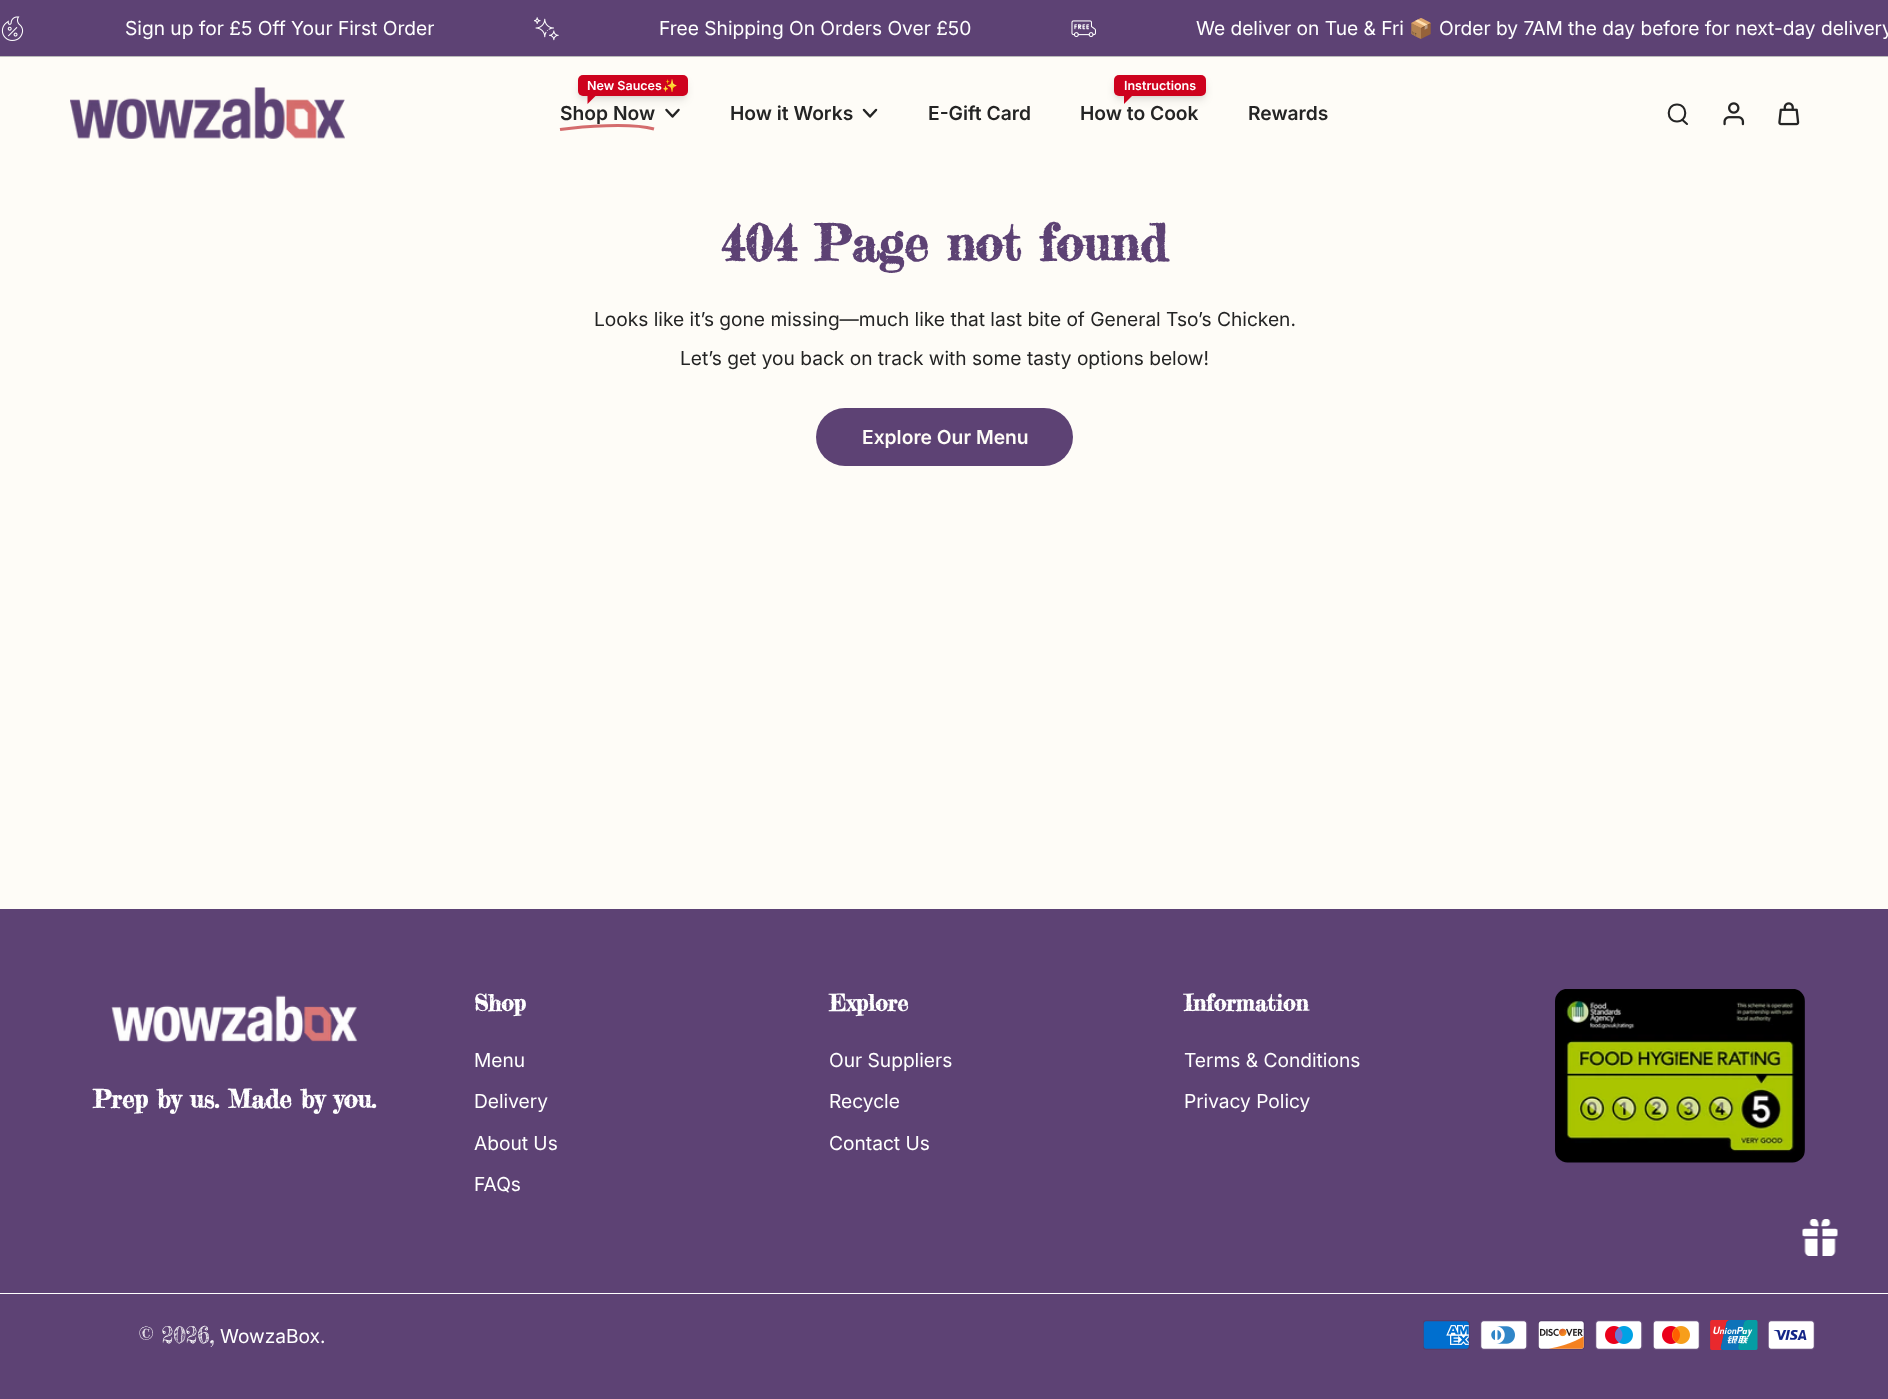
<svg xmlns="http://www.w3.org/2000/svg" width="1888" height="1399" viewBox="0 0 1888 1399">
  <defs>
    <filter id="blur1" x="-50%" y="-200%" width="200%" height="500%"><feGaussianBlur stdDeviation="2.5"/></filter>
    <filter id="blur2" x="-50%" y="-200%" width="200%" height="500%"><feGaussianBlur stdDeviation="4"/></filter>
  </defs>
  <rect width="100%" height="100%" fill="#fefcf7"/>
  <rect x="0" y="0" width="1888" height="56" fill="#5d4274"/>
  <rect x="0" y="56" width="1888" height="1" fill="#b9b9b9"/>
  <image x="1" y="16" width="23" height="25" href="img1.png"/>
  <text x="125" y="35" font-family="Inter" font-size="19.25" fill="#ffffff">Sign up for £5 Off Your First Order</text>
  <image x="534" y="17" width="25" height="24" href="img2.png"/>
  <text x="659" y="35" font-family="Inter" font-size="19.25" fill="#ffffff">Free Shipping On Orders Over £50</text>
  <image x="1071" y="20" width="25" height="17" href="img3.png"/>
  <text x="1196" y="35" font-family="Inter" font-size="19.25" fill="#ffffff">We deliver on Tue &amp; Fri</text>
  <text x="1409" y="35" font-family="Noto Color Emoji" font-size="19.25" fill="#ffffff">📦</text>
  <text x="1439" y="35" font-family="Inter" font-size="19.25" fill="#ffffff">Order by 7AM the day before for next-day delivery</text>
  <image x="70" y="87" width="275" height="52" href="img4.png"/>
  <rect x="580" y="80" width="105" height="16" rx="2.5" fill="#000000" fill-opacity="0.1" filter="url(#blur1)"/>
  <path d="M666.5 110L672.5 116.5L678.5 110" fill="none" stroke="#242424" stroke-width="2.5" stroke-linecap="round" stroke-linejoin="round"/>
  <rect x="579" y="81" width="107" height="19" rx="4" fill="#000000" fill-opacity="0.1" filter="url(#blur2)"/>
  <rect x="578" y="75" width="110" height="21" rx="5" fill="#ce021e"/>
  <text x="587" y="90" font-family="Inter" font-size="12.5" font-weight="600" fill="#ffffff">New Sauces</text>
  <text x="662" y="90" font-family="Noto Color Emoji" font-size="12.5" font-weight="bold" fill="#ffffff">✨</text>
  <path d="M587.5 94H597.5L587.5 104Z" fill="#ce021e"/>
  <text x="560" y="120" font-family="Inter" font-size="19.25" font-weight="600" fill="#242424">Shop Now</text>
  <path d="M560 129.5C581.5 126.5 630.5 122.5 654 129" fill="none" stroke="#d46c6d" stroke-width="3.1"/>
  <text x="730" y="120" font-family="Inter" font-size="19.25" font-weight="600" fill="#242424">How it Works</text>
  <path d="M864 110L870 116.5L876 110" fill="none" stroke="#242424" stroke-width="2.5" stroke-linecap="round" stroke-linejoin="round"/>
  <text x="928" y="120" font-family="Inter" font-size="19.25" font-weight="600" fill="#242424">E-Gift Card</text>
  <rect x="1116" y="80" width="88" height="16" rx="2.5" fill="#000000" fill-opacity="0.1" filter="url(#blur1)"/>
  <rect x="1115" y="81" width="90" height="19" rx="4" fill="#000000" fill-opacity="0.1" filter="url(#blur2)"/>
  <rect x="1114" y="75" width="92" height="21" rx="5" fill="#ce021e"/>
  <text x="1124" y="90" font-family="Inter" font-size="12.5" font-weight="600" fill="#ffffff">Instructions</text>
  <path d="M1124 94H1134L1124 104Z" fill="#ce021e"/>
  <text x="1080" y="120" font-family="Inter" font-size="19.25" font-weight="600" fill="#242424">How to Cook</text>
  <text x="1248" y="120" font-family="Inter" font-size="19.25" font-weight="600" fill="#242424">Rewards</text>
  <path d="M1677 121.5C1688 121.5 1688 104.5 1677 104.5C1666 104.5 1666 121.5 1677 121.5Z" fill="none" stroke="#242424" stroke-width="2.1"/>
  <path d="M1682.5 120L1687 124" fill="none" stroke="#242424" stroke-width="2.1" stroke-linecap="round"/>
  <image x="1723" y="102" width="22" height="24" href="img5.png"/>
  <image x="1778" y="102" width="22" height="24" href="img6.png"/>
  <text x="721" y="261" font-family="Fredericka the Great" font-size="49.5" font-weight="bold" fill="#5d4274">404 Page not found</text>
  <text x="594" y="326" font-family="Inter" font-size="19.25" fill="#242424">Looks like it’s gone missing—much like that last bite of General Tso’s Chicken.</text>
  <text x="680" y="365" font-family="Inter" font-size="19.25" fill="#242424">Let’s get you back on track with some tasty options below!</text>
  <rect x="816" y="408" width="257" height="58" rx="29" fill="#5d4274"/>
  <text x="862" y="444" font-family="Inter" font-size="19.25" font-weight="600" fill="#fefcf7">Explore Our Menu</text>
  <rect x="0" y="909" width="1888" height="490" fill="#5d4274"/>
  <rect x="0" y="1293" width="1888" height="1" fill="#ffffff"/>
  <image x="111" y="995" width="247" height="48" href="img7.png"/>
  <text x="93" y="1108" font-family="Fredericka the Great" font-size="25" font-weight="bold" fill="#ffffff">Prep by us. Made by you.</text>
  <text x="474" y="1011" font-family="Fredericka the Great" font-size="22.5" font-weight="bold" fill="#ffffff">Shop</text>
  <text x="474" y="1067" font-family="Inter" font-size="19.25" fill="#ffffff">Menu</text>
  <text x="474" y="1108" font-family="Inter" font-size="19.25" fill="#ffffff">Delivery</text>
  <text x="474" y="1150" font-family="Inter" font-size="19.25" fill="#ffffff">About Us</text>
  <text x="474" y="1191" font-family="Inter" font-size="19.25" fill="#ffffff">FAQs</text>
  <text x="829" y="1011" font-family="Fredericka the Great" font-size="22.5" font-weight="bold" fill="#ffffff">Explore</text>
  <text x="829" y="1067" font-family="Inter" font-size="19.25" fill="#ffffff">Our Suppliers</text>
  <text x="829" y="1108" font-family="Inter" font-size="19.25" fill="#ffffff">Recycle</text>
  <text x="829" y="1150" font-family="Inter" font-size="19.25" fill="#ffffff">Contact Us</text>
  <text x="1184" y="1011" font-family="Fredericka the Great" font-size="22.5" font-weight="bold" fill="#ffffff">Information</text>
  <text x="1184" y="1067" font-family="Inter" font-size="19.25" fill="#ffffff">Terms &amp; Conditions</text>
  <text x="1184" y="1108" font-family="Inter" font-size="19.25" fill="#ffffff">Privacy Policy</text>
  <image x="1555" y="989" width="250" height="174" href="img8.png"/>
  <text x="139" y="1343" font-family="Fredericka the Great" font-size="22.5" fill="#ffffff">© 2026,</text>
  <text x="220" y="1343" font-family="Inter" font-size="19.25" fill="#ffffff">WowzaBox</text>
  <text x="320" y="1343" font-family="Inter" font-size="19.25" fill="#ffffff">.</text>
  <image x="1423" y="1320" width="47" height="30" href="img9.png"/>
  <image x="1480" y="1320" width="48" height="30" href="img10.png"/>
  <image x="1538" y="1320" width="47" height="30" href="img11.png"/>
  <image x="1595" y="1320" width="48" height="30" href="img12.png"/>
  <image x="1653" y="1320" width="47" height="30" href="img13.png"/>
  <image x="1710" y="1320" width="48" height="30" href="img14.png"/>
  <image x="1768" y="1320" width="47" height="30" href="img15.png"/>
  <image x="1802" y="1219" width="36" height="37" href="img16.png"/>
</svg>
